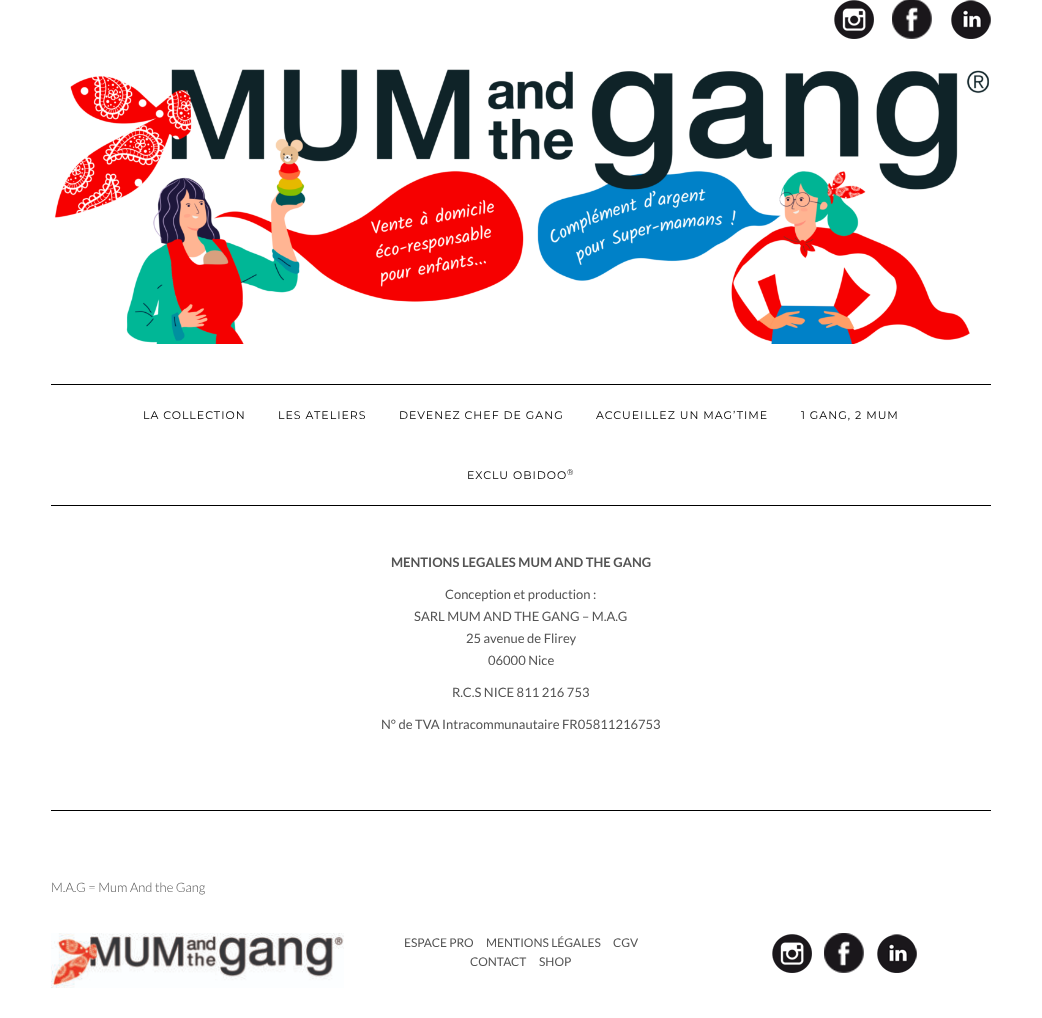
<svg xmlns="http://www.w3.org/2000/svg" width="1042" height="1018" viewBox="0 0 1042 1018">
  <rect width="100%" height="100%" fill="#ffffff"/>
  <image x="834" y="0" width="40" height="39" href="img1.png"/>
  <image x="892" y="0" width="40" height="39" href="img2.png"/>
  <image x="951" y="0" width="40" height="39" href="img3.png"/>
  <image x="54" y="69" width="936" height="275" href="img4.png"/>
  <rect x="51" y="384" width="940" height="1" fill="#000000"/>
  <rect x="51" y="505" width="940" height="1" fill="#000000"/>
  <text x="143" y="419" font-family="Montserrat" font-size="11" letter-spacing="1" fill="#000000">LA COLLECTION</text>
  <text x="278" y="419" font-family="Montserrat" font-size="11" letter-spacing="1" fill="#000000">LES ATELIERS</text>
  <text x="399" y="419" font-family="Montserrat" font-size="11" letter-spacing="1" fill="#000000">DEVENEZ CHEF DE GANG</text>
  <text x="596" y="419" font-family="Montserrat" font-size="11" letter-spacing="1" fill="#000000">ACCUEILLEZ UN MAG’TIME</text>
  <text x="801" y="419" font-family="Montserrat" font-size="11" letter-spacing="1" fill="#000000">1 GANG, 2 MUM</text>
  <text x="467" y="479" font-family="Montserrat" font-size="11" letter-spacing="1" fill="#000000">EXCLU OBIDOO</text>
  <text x="567" y="475" font-family="Montserrat" font-size="8" letter-spacing="1" fill="#000000">®</text>
  <text x="391" y="567" font-family="Lato" font-size="13" font-weight="bold" fill="#545454">MENTIONS LEGALES MUM AND THE GANG</text>
  <text x="445" y="599" font-family="Lato" font-size="13" fill="#545454">Conception et production :</text>
  <text x="414" y="621" font-family="Lato" font-size="13" fill="#545454">SARL MUM AND THE GANG – M.A.G</text>
  <text x="466" y="643" font-family="Lato" font-size="13" fill="#545454">25 avenue de Flirey</text>
  <text x="488" y="665" font-family="Lato" font-size="13" fill="#545454">06000 Nice</text>
  <text x="452" y="697" font-family="Lato" font-size="13" fill="#545454">R.C.S NICE 811 216 753</text>
  <text x="381" y="729" font-family="Lato" font-size="13" fill="#545454">N° de TVA Intracommunautaire FR05811216753</text>
  <rect x="51" y="810" width="940" height="1" fill="#000000"/>
  <text x="51" y="892" font-family="Lato" font-size="13" font-weight="300" fill="#545454">M.A.G = Mum And the Gang</text>
  <image x="51" y="933" width="293" height="55" href="img5.png"/>
  <text x="404" y="947" font-family="Lato" font-size="12" fill="#545454">ESPACE PRO</text>
  <text x="486" y="947" font-family="Lato" font-size="12" fill="#545454">MENTIONS LÉGALES</text>
  <text x="613" y="947" font-family="Lato" font-size="12" fill="#545454">CGV</text>
  <text x="470" y="966" font-family="Lato" font-size="12" fill="#545454">CONTACT</text>
  <text x="539" y="966" font-family="Lato" font-size="12" fill="#545454">SHOP</text>
  <image x="772" y="934" width="40" height="39" href="img1.png"/>
  <image x="824" y="933" width="40" height="40" href="img6.png"/>
  <image x="877" y="934" width="40" height="39" href="img3.png"/>
</svg>
